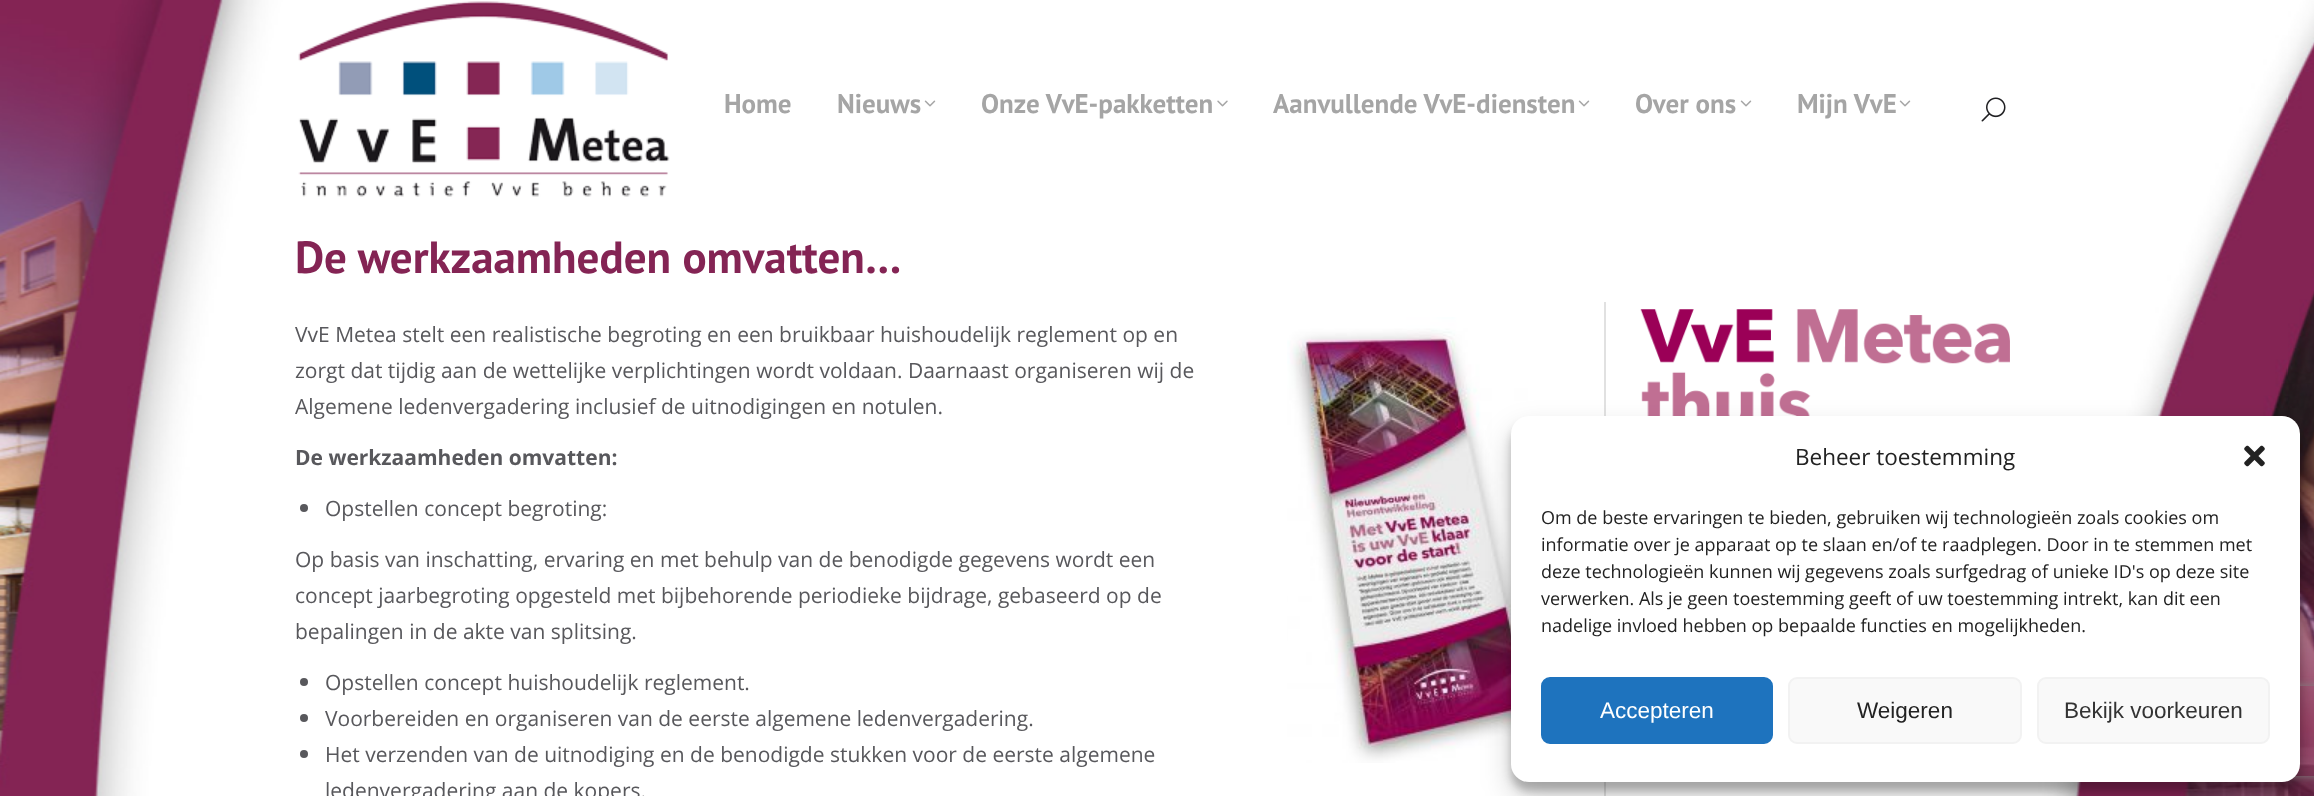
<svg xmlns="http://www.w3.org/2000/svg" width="2314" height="796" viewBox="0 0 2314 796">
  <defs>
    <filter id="blur1" x="-50%" y="-200%" width="200%" height="500%"><feGaussianBlur stdDeviation="4.5"/></filter>
    <filter id="blur2" x="-50%" y="-200%" width="200%" height="500%"><feGaussianBlur stdDeviation="15"/></filter>
    <clipPath id="clip1"><path d="M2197 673H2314V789H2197ZM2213 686H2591C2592.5 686 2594 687.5 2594 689V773C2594 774.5 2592.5 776 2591 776H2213C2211.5 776 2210 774.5 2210 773V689C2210 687.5 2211.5 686 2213 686Z" clip-rule="evenodd"/></clipPath>
    <filter id="blur3" x="-50%" y="-200%" width="200%" height="500%"><feGaussianBlur stdDeviation="4"/></filter>
  </defs>
  <rect width="100%" height="100%" fill="#ffffff"/>
  <image x="0" y="0" width="2314" height="796" href="img1.png"/>
  <image x="298" y="1" width="372" height="196" href="img2.png"/>
  <text x="724" y="113" font-family="PT Sans" font-size="27" font-weight="bold" fill="#a5a5a5">Home</text>
  <text x="837" y="113" font-family="PT Sans" font-size="27" font-weight="bold" fill="#a5a5a5">Nieuws</text>
  <image x="924" y="100" width="12" height="7" href="img3.png"/>
  <text x="981" y="113" font-family="PT Sans" font-size="27" font-weight="bold" fill="#a5a5a5">Onze VvE-pakketten</text>
  <image x="1217" y="100" width="11" height="7" href="img4.png"/>
  <text x="1273" y="113" font-family="PT Sans" font-size="27" font-weight="bold" fill="#a5a5a5">Aanvullende VvE-diensten</text>
  <image x="1578" y="100" width="12" height="7" href="img3.png"/>
  <text x="1635" y="113" font-family="PT Sans" font-size="27" font-weight="bold" fill="#a5a5a5">Over ons</text>
  <image x="1740" y="100" width="12" height="7" href="img3.png"/>
  <text x="1797" y="113" font-family="PT Sans" font-size="27" font-weight="bold" fill="#a5a5a5">Mijn VvE</text>
  <image x="1899" y="100" width="12" height="7" href="img3.png"/>
  <image x="1981" y="97" width="25" height="25" href="img5.png"/>
  <text x="295" y="273" font-family="PT Sans" font-size="45" font-weight="bold" fill="#842454">De werkzaamheden omvatten…</text>
  <text x="295" y="342" font-family="Open Sans" font-size="21" fill="#58585c">VvE Metea stelt een realistische begroting en een bruikbaar huishoudelijk reglement op en</text>
  <text x="295" y="378" font-family="Open Sans" font-size="21" fill="#58585c">zorgt dat tijdig aan de wettelijke verplichtingen wordt voldaan. Daarnaast organiseren wij de</text>
  <text x="295" y="414" font-family="Open Sans" font-size="21" fill="#58585c">Algemene ledenvergadering inclusief de uitnodigingen en notulen.</text>
  <image x="1287" y="317" width="253" height="446" href="img6.png"/>
  <text x="295" y="465" font-family="Open Sans" font-size="21" font-weight="bold" fill="#58585c">De werkzaamheden omvatten:</text>
  <circle cx="304" cy="508" r="4" fill="#58585c"/>
  <text x="325" y="516" font-family="Open Sans" font-size="21" fill="#58585c">Opstellen concept begroting:</text>
  <text x="295" y="567" font-family="Open Sans" font-size="21" fill="#58585c">Op basis van inschatting, ervaring en met behulp van de benodigde gegevens wordt een</text>
  <text x="295" y="603" font-family="Open Sans" font-size="21" fill="#58585c">concept jaarbegroting opgesteld met bijbehorende periodieke bijdrage, gebaseerd op de</text>
  <text x="295" y="639" font-family="Open Sans" font-size="21" fill="#58585c">bepalingen in de akte van splitsing.</text>
  <circle cx="304" cy="682" r="4" fill="#58585c"/>
  <text x="325" y="690" font-family="Open Sans" font-size="21" fill="#58585c">Opstellen concept huishoudelijk reglement.</text>
  <circle cx="304" cy="718" r="4" fill="#58585c"/>
  <text x="325" y="726" font-family="Open Sans" font-size="21" fill="#58585c">Voorbereiden en organiseren van de eerste algemene ledenvergadering.</text>
  <circle cx="304" cy="754" r="4" fill="#58585c"/>
  <text x="325" y="762" font-family="Open Sans" font-size="21" fill="#58585c">Het verzenden van de uitnodiging en de benodigde stukken voor de eerste algemene</text>
  <text x="325" y="798" font-family="Open Sans" font-size="21" fill="#58585c">ledenvergadering aan de kopers.</text>
  <rect x="1604" y="302" width="2" height="494" fill="#e1e1e1"/>
  <image x="1640" y="309" width="370" height="107" href="img7.png"/>
  <rect x="1511" y="425" width="789" height="366" rx="18" fill="#000000" fill-opacity="0.23" filter="url(#blur1)"/>
  <rect x="1511" y="431" width="789" height="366" rx="18" fill="#000000" fill-opacity="0.19" filter="url(#blur2)"/>
  <g clip-path="url(#clip1)">
    <rect x="2210" y="686" width="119" height="90" rx="3" fill="#808080" filter="url(#blur3)"/>
  </g>
  <rect x="1511" y="416" width="789" height="366" rx="18" fill="#ffffff"/>
  <text x="1795" y="465" font-family="Open Sans" font-size="22.5" fill="#222222">Beheer toestemming</text>
  <image x="2244" y="445" width="21" height="22" href="img8.png"/>
  <text x="1541" y="524" font-family="Open Sans" font-size="18" fill="#222222">Om de beste ervaringen te bieden, gebruiken wij technologieën zoals cookies om</text>
  <text x="1541" y="551" font-family="Open Sans" font-size="18" fill="#222222">informatie over je apparaat op te slaan en/of te raadplegen. Door in te stemmen met</text>
  <text x="1541" y="578" font-family="Open Sans" font-size="18" fill="#222222">deze technologieën kunnen wij gegevens zoals surfgedrag of unieke ID's op deze site</text>
  <text x="1541" y="605" font-family="Open Sans" font-size="18" fill="#222222">verwerken. Als je geen toestemming geeft of uw toestemming intrekt, kan dit een</text>
  <text x="1541" y="632" font-family="Open Sans" font-size="18" fill="#222222">nadelige invloed hebben op bepaalde functies en mogelijkheden.</text>
  <rect x="1542" y="678" width="230" height="65" rx="8" fill="#1e73be" stroke="#1e73be" stroke-width="2"/>
  <text x="1600" y="718" font-family="Liberation Sans" font-size="22.5" fill="#ffffff">Accepteren</text>
  <rect x="1789" y="678" width="232" height="65" rx="8" fill="#f9f9f9" stroke="#f2f2f2" stroke-width="2"/>
  <text x="1857" y="718" font-family="Liberation Sans" font-size="22.5" fill="#222222">Weigeren</text>
  <rect x="2038" y="678" width="231" height="65" rx="8" fill="#f9f9f9" stroke="#f2f2f2" stroke-width="2"/>
  <text x="2064" y="718" font-family="Liberation Sans" font-size="22.5" fill="#333333">Bekijk voorkeuren</text>
</svg>
